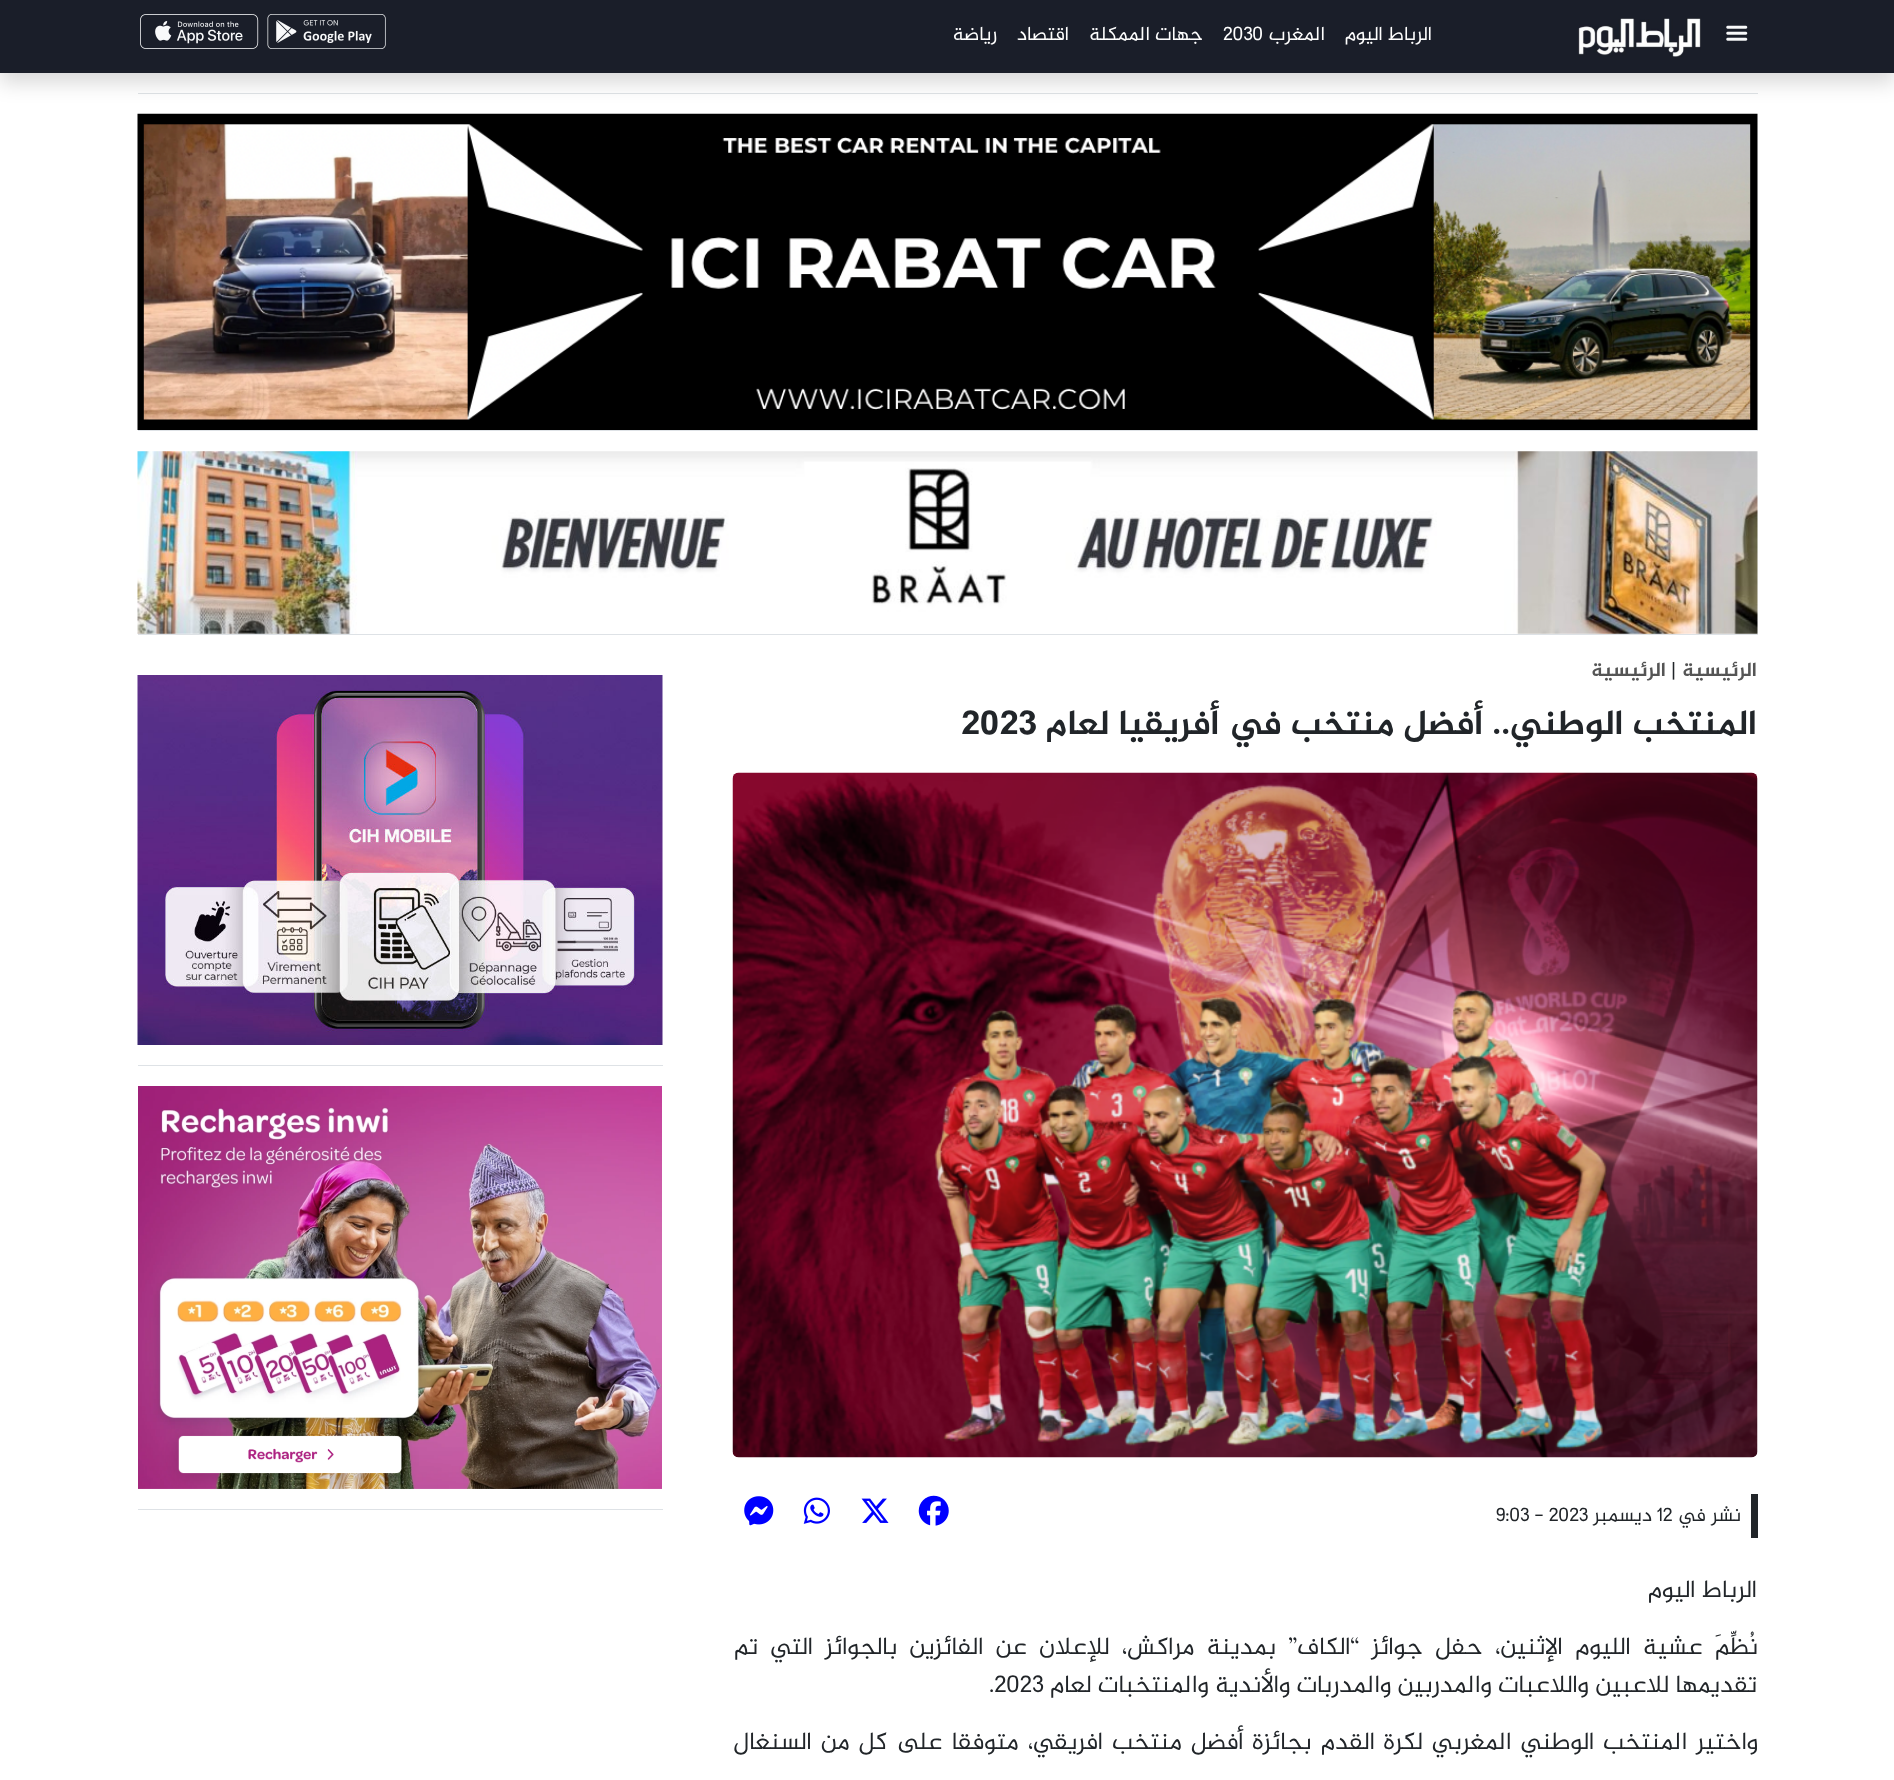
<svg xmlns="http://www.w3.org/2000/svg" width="1894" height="1780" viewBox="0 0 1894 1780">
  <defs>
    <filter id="blur1" x="-50%" y="-200%" width="200%" height="500%"><feGaussianBlur stdDeviation="10"/></filter>
  </defs>
  <rect width="100%" height="100%" fill="#ffffff"/>
  <rect x="138" y="93" width="1620" height="1" fill="#dee2e6"/>
  <image x="137" y="113" width="1621" height="317" href="img5.png"/>
  <rect x="0" y="10" width="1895" height="73" fill="#000000" fill-opacity="0.15" filter="url(#blur1)"/>
  <rect x="0" y="0" width="1894" height="73" fill="#1a1e29"/>
  <image x="1726" y="25" width="22" height="16" href="img1.png"/>
  <image x="1578" y="18" width="123" height="39" href="img2.png"/>
  <text x="1432" y="40" font-family="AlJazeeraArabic" font-size="20" direction="rtl" fill="#ffffff">الرباط اليوم</text>
  <text x="1325" y="40" font-family="AlJazeeraArabic" font-size="20" direction="rtl" fill="#ffffff">المغرب</text>
  <text x="1223" y="40" font-family="AlJazeeraArabic" font-size="20" fill="#ffffff">2030</text>
  <text x="1203" y="40" font-family="AlJazeeraArabic" font-size="20" direction="rtl" fill="#ffffff">جهات الممكلة</text>
  <text x="1069" y="40" font-family="AlJazeeraArabic" font-size="20" direction="rtl" fill="#ffffff">اقتصاد</text>
  <text x="997" y="40" font-family="AlJazeeraArabic" font-size="20" direction="rtl" fill="#ffffff">رياضة</text>
  <image x="267" y="14" width="119" height="35" href="img3.png"/>
  <image x="140" y="14" width="119" height="35" href="img4.png"/>
  <rect x="138" y="430" width="1620" height="1" fill="#dee2e6"/>
  <rect x="138" y="634" width="1620" height="1" fill="#dee2e6"/>
  <image x="137" y="451" width="1621" height="183" href="img6.png"/>
  <text x="1757" y="676" font-family="AlJazeeraArabic" font-size="20" font-weight="bold" direction="rtl" fill="#555555">الرئيسية</text>
  <text x="1671" y="676" font-family="AlJazeeraArabic" font-size="20" fill="#212529">|</text>
  <text x="1666" y="676" font-family="AlJazeeraArabic" font-size="20" font-weight="bold" direction="rtl" fill="#555555">الرئيسية</text>
  <text x="1757" y="734" font-family="AlJazeeraArabic" font-size="35" font-weight="bold" direction="rtl" fill="#212529">المنتخب الوطني.. أفضل منتخب في أفريقيا لعام</text>
  <text x="961" y="734" font-family="AlJazeeraArabic" font-size="35" font-weight="bold" fill="#212529">2023</text>
  <image x="732" y="772" width="1026" height="686" href="img7.png"/>
  <text x="1741" y="1521" font-family="AlJazeeraArabic" font-size="20" direction="rtl" fill="#212529">نشر في</text>
  <rect x="1751" y="1494" width="7" height="44" fill="#212529"/>
  <text x="1657" y="1521" font-family="AlJazeeraArabic" font-size="20" fill="#212529">12</text>
  <text x="1652" y="1521" font-family="AlJazeeraArabic" font-size="20" direction="rtl" fill="#212529">ديسمبر</text>
  <text x="1496" y="1521" font-family="AlJazeeraArabic" font-size="20" fill="#212529">9:03 - 2023</text>
  <image x="918" y="1495" width="31" height="31" href="img8.png"/>
  <image x="861" y="1498" width="28" height="25" href="img9.png"/>
  <image x="803" y="1497" width="27" height="27" href="img10.png"/>
  <image x="744" y="1496" width="30" height="30" href="img11.png"/>
  <text x="1757" y="1597" font-family="AlJazeeraArabic" font-size="25" direction="rtl" fill="#212529">الرباط اليوم</text>
  <text x="1758" y="1654" word-spacing="5.75" font-family="AlJazeeraArabic" font-size="25" direction="rtl" fill="#212529">نُظِّمَ عشية الليوم الإثنين، حفل جوائز “الكاف” بمدينة مراكش، للإعلان عن الفائزين بالجوائز التي تم</text>
  <text x="1757" y="1692" font-family="AlJazeeraArabic" font-size="25" direction="rtl" fill="#212529">تقديمها للاعبين واللاعبات والمدربين والمدربات والأندية والمنتخبات لعام</text>
  <text x="989" y="1692" font-family="AlJazeeraArabic" font-size="25" fill="#212529">.2023</text>
  <text x="1758" y="1749" word-spacing="2.6" font-family="AlJazeeraArabic" font-size="25" direction="rtl" fill="#212529">واختير المنتخب الوطني المغربي لكرة القدم بجائزة أفضل منتخب افريقي، متوفقا على كل من السنغال</text>
  <rect x="138" y="1065" width="525" height="1" fill="#dee2e6"/>
  <image x="137" y="675" width="526" height="370" href="img12.png"/>
  <rect x="138" y="1509" width="525" height="1" fill="#dee2e6"/>
  <image x="138" y="1086" width="524" height="403" href="img13.png"/>
</svg>
